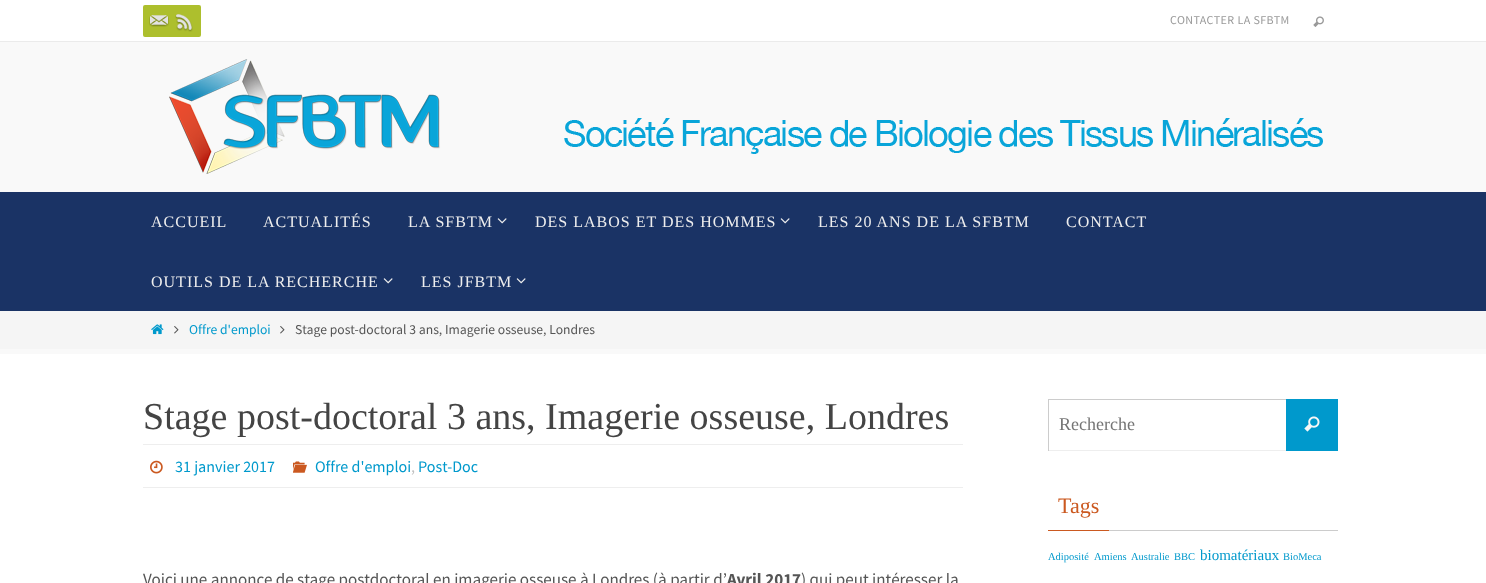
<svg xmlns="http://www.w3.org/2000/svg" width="1486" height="583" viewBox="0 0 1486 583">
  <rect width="100%" height="100%" fill="#f9f9f9"/>
  <rect x="0" y="0" width="1486" height="41" fill="#ffffff"/>
  <rect x="0" y="41" width="1486" height="1" fill="#ebebeb"/>
  <rect x="143" y="5" width="32" height="32" rx="2" fill="#adbf2d"/>
  <image x="149" y="15" width="20" height="12" href="img1.png"/>
  <rect x="169" y="5" width="32" height="32" rx="2" fill="#adbf2d"/>
  <image x="175" y="14" width="18" height="18" href="img2.png"/>
  <text x="1170" y="24" font-family="Source Sans Pro" font-size="12" letter-spacing="0.4" fill="#999999">CONTACTER LA SFBTM</text>
  <image x="1313" y="16" width="11" height="11" href="img3.png"/>
  <image x="169" y="59" width="1154" height="115" href="img4.png"/>
  <rect x="0" y="192" width="1486" height="119" fill="#1a3365"/>
  <text x="151" y="227" font-family="Liberation Serif" font-size="16" letter-spacing="1" fill="#eeeeee">ACCUEIL</text>
  <text x="263" y="227" font-family="Liberation Serif" font-size="16" letter-spacing="1" fill="#eeeeee">ACTUALITÉS</text>
  <text x="408" y="227" font-family="Liberation Serif" font-size="16" letter-spacing="1" fill="#eeeeee">LA SFBTM</text>
  <image x="497" y="218" width="10" height="6" href="img5.png"/>
  <text x="535" y="227" font-family="Liberation Serif" font-size="16" letter-spacing="1" fill="#eeeeee">DES LABOS ET DES HOMMES</text>
  <image x="780" y="218" width="10" height="6" href="img5.png"/>
  <text x="818" y="227" font-family="Liberation Serif" font-size="16" letter-spacing="1" fill="#eeeeee">LES 20 ANS DE LA SFBTM</text>
  <text x="1066" y="227" font-family="Liberation Serif" font-size="16" letter-spacing="1" fill="#eeeeee">CONTACT</text>
  <text x="151" y="287" font-family="Liberation Serif" font-size="16" letter-spacing="1" fill="#eeeeee">OUTILS DE LA RECHERCHE</text>
  <image x="383" y="278" width="10" height="6" href="img5.png"/>
  <text x="421" y="287" font-family="Liberation Serif" font-size="16" letter-spacing="1" fill="#eeeeee">LES JFBTM</text>
  <image x="516" y="278" width="10" height="6" href="img5.png"/>
  <rect x="0" y="311" width="1486" height="38" fill="#f5f5f5"/>
  <image x="151" y="324" width="13" height="11" href="img6.png"/>
  <image x="174" y="326" width="5" height="8" href="img7.png"/>
  <text x="189" y="334" font-family="Source Sans Pro" font-size="13.6" fill="#0099cc">Offre d'emploi</text>
  <image x="280" y="326" width="5" height="8" href="img7.png"/>
  <text x="295" y="334" font-family="Source Sans Pro" font-size="13.6" fill="#555555">Stage post-doctoral 3 ans, Imagerie osseuse, Londres</text>
  <rect x="0" y="354" width="1486" height="229" fill="#ffffff"/>
  <text x="143" y="429" font-family="Liberation Serif" font-size="38" fill="#444444">Stage post-doctoral 3 ans, Imagerie osseuse, Londres</text>
  <rect x="143" y="444" width="820" height="1" fill="#eeeeee"/>
  <rect x="143" y="487" width="820" height="1" fill="#eeeeee"/>
  <image x="150" y="460" width="13" height="14" href="img8.png"/>
  <text x="175" y="472" font-family="Source Sans Pro" font-size="16" fill="#0099cc">31 janvier 2017</text>
  <image x="293" y="461" width="14" height="12" href="img9.png"/>
  <text x="315" y="472" font-family="Source Sans Pro" font-size="16" fill="#0099cc">Offre d'emploi</text>
  <text x="411" y="472" font-family="Source Sans Pro" font-size="16" fill="#c1c1c1">,</text>
  <text x="418" y="472" font-family="Source Sans Pro" font-size="16" fill="#0099cc">Post-Doc</text>
  <text x="143" y="585" font-family="Source Sans Pro" font-size="17" fill="#555555">Voici une annonce de stage postdoctoral en imagerie osseuse à Londres (à partir d’</text>
  <text x="727" y="585" font-family="Source Sans Pro" font-size="17" font-weight="bold" fill="#555555">Avril 2017</text>
  <text x="801" y="585" font-family="Source Sans Pro" font-size="17" fill="#555555">) qui peut intéresser la</text>
  <rect x="1286" y="399" width="52" height="52" fill="#0099cc"/>
  <rect x="1048" y="399" width="238" height="1" fill="#cccccc"/>
  <rect x="1048" y="450" width="238" height="1" fill="#eeeeee"/>
  <rect x="1048" y="399" width="1" height="52" fill="#cccccc"/>
  <text x="1059" y="430" font-family="Liberation Serif" font-size="18" fill="#757575">Recherche</text>
  <image x="1304" y="416" width="16" height="16" href="img10.png"/>
  <rect x="1109" y="530" width="229" height="1" fill="#cccccc"/>
  <rect x="1048" y="530" width="61" height="1" fill="#cb5920"/>
  <text x="1058" y="513" font-family="Liberation Serif" font-size="22" fill="#cb5920">Tags</text>
  <text x="1048" y="560" font-family="Liberation Serif" font-size="10.5" fill="#0099cc">Adiposité</text>
  <text x="1094" y="560" font-family="Liberation Serif" font-size="10.5" fill="#0099cc">Amiens</text>
  <text x="1131" y="560" font-family="Liberation Serif" font-size="10.5" fill="#0099cc">Australie</text>
  <text x="1174" y="560" font-family="Liberation Serif" font-size="10.5" fill="#0099cc">BBC</text>
  <text x="1200" y="560" font-family="Liberation Serif" font-size="15" fill="#0099cc">biomatériaux</text>
  <text x="1283" y="560" font-family="Liberation Serif" font-size="10.5" fill="#0099cc">BioMeca</text>
</svg>
